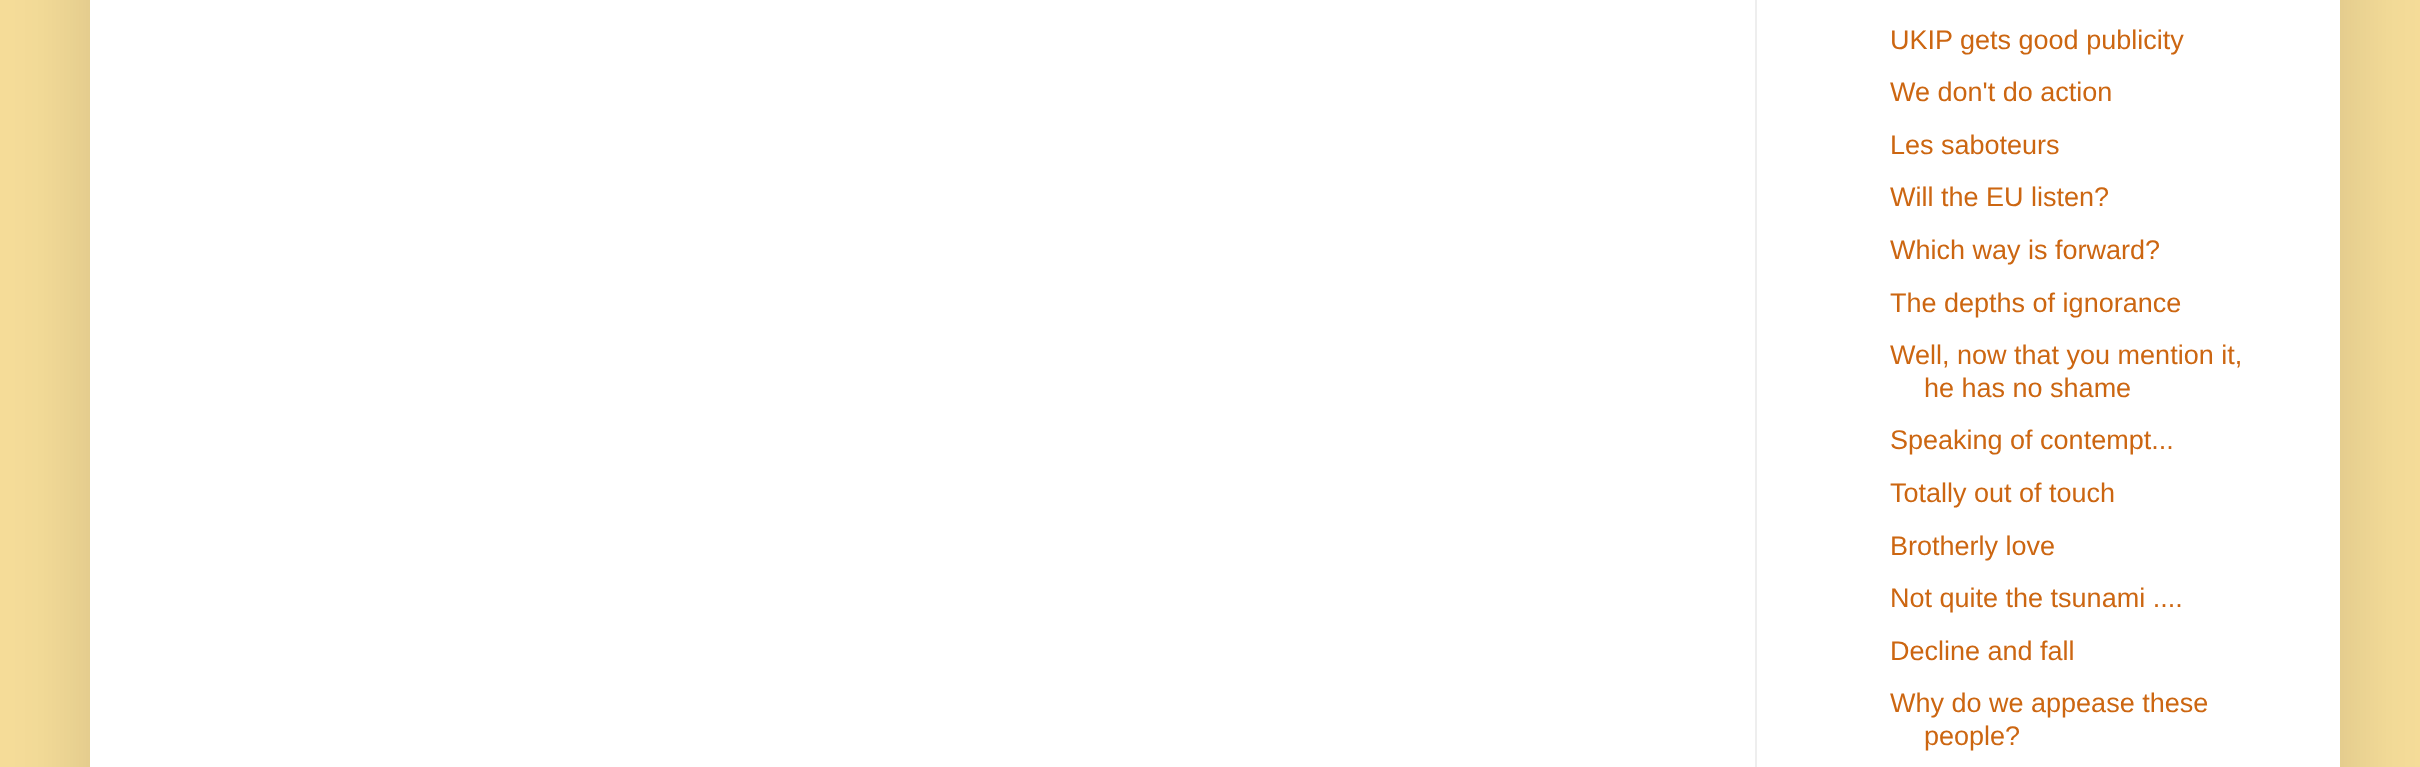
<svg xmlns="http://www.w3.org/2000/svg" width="2420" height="767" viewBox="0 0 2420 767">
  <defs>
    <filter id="blur1" x="-50%" y="-200%" width="200%" height="500%"><feGaussianBlur stdDeviation="45"/></filter>
  </defs>
  <rect width="100%" height="100%" fill="#f6dd99"/>
  <rect x="90" y="-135" width="2250" height="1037" fill="#000000" fill-opacity="0.15" filter="url(#blur1)"/>
  <rect x="90" y="0" width="2250" height="767" fill="#ffffff"/>
  <rect x="1755" y="0" width="2" height="767" fill="#eeeeee"/>
  <text x="1890" y="49" font-family="Liberation Sans" font-size="27" fill="#cc6611">UKIP gets good publicity</text>
  <text x="1890" y="101" font-family="Liberation Sans" font-size="27" fill="#cc6611">We don't do action</text>
  <text x="1890" y="154" font-family="Liberation Sans" font-size="27" fill="#cc6611">Les saboteurs</text>
  <text x="1890" y="206" font-family="Liberation Sans" font-size="27" fill="#cc6611">Will the EU listen?</text>
  <text x="1890" y="259" font-family="Liberation Sans" font-size="27" fill="#cc6611">Which way is forward?</text>
  <text x="1890" y="312" font-family="Liberation Sans" font-size="27" fill="#cc6611">The depths of ignorance</text>
  <text x="1890" y="364" font-family="Liberation Sans" font-size="27" fill="#cc6611">Well, now that you mention it,</text>
  <text x="1924" y="397" font-family="Liberation Sans" font-size="27" fill="#cc6611">he has no shame</text>
  <text x="1890" y="449" font-family="Liberation Sans" font-size="27" fill="#cc6611">Speaking of contempt...</text>
  <text x="1890" y="502" font-family="Liberation Sans" font-size="27" fill="#cc6611">Totally out of touch</text>
  <text x="1890" y="555" font-family="Liberation Sans" font-size="27" fill="#cc6611">Brotherly love</text>
  <text x="1890" y="607" font-family="Liberation Sans" font-size="27" fill="#cc6611">Not quite the tsunami ....</text>
  <text x="1890" y="660" font-family="Liberation Sans" font-size="27" fill="#cc6611">Decline and fall</text>
  <text x="1890" y="712" font-family="Liberation Sans" font-size="27" fill="#cc6611">Why do we appease these</text>
  <text x="1924" y="745" font-family="Liberation Sans" font-size="27" fill="#cc6611">people?</text>
</svg>
